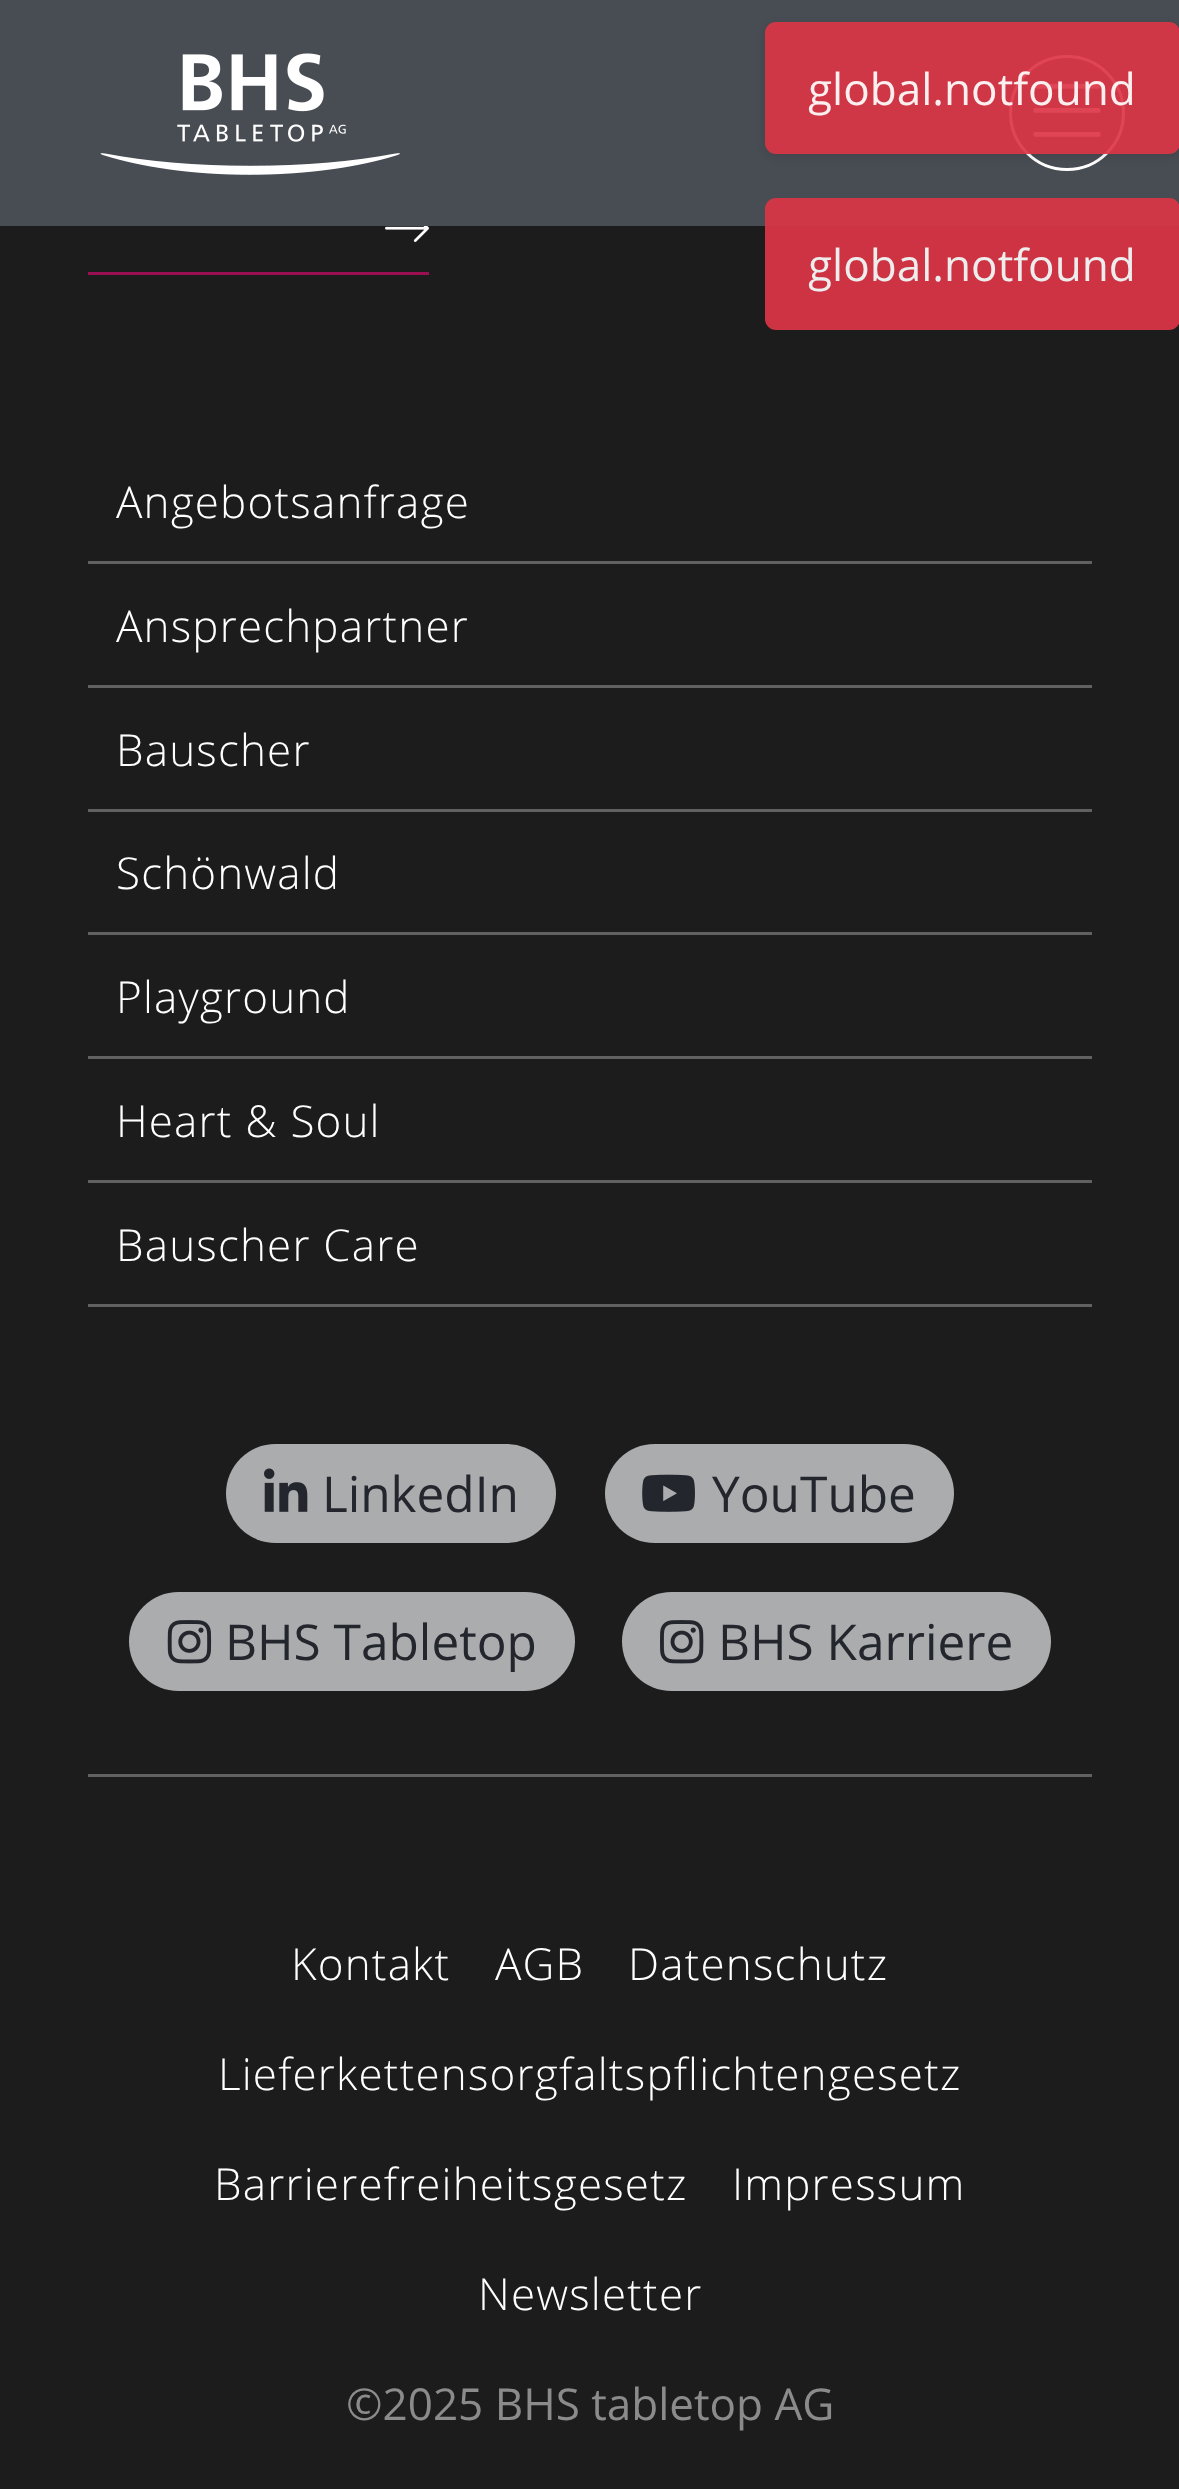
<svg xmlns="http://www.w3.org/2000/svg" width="1179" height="2489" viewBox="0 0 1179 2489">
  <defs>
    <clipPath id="clip1"><path d="M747 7H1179V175H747ZM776 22H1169C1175 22 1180 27 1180 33V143C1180 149 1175 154 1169 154H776C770 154 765 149 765 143V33C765 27 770 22 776 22Z" clip-rule="evenodd"/></clipPath>
    <filter id="blur1" x="-50%" y="-200%" width="200%" height="500%"><feGaussianBlur stdDeviation="5.5"/></filter>
  </defs>
  <rect width="100%" height="100%" fill="#1c1c1c"/>
  <rect x="0" y="0" width="1179" height="226" fill="#484c53"/>
  <image x="100" y="53" width="300" height="122" href="img1.png"/>
  <circle cx="1067" cy="113" r="56.5" fill="none" stroke="#ffffff" stroke-width="3"/>
  <image x="1033" y="83" width="68" height="54" href="img2.png"/>
  <g clip-path="url(#clip1)">
    <rect x="765" y="25" width="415" height="132" rx="11" fill="#000000" fill-opacity="0.11" filter="url(#blur1)"/>
  </g>
  <rect x="765" y="22" width="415" height="132" rx="11" fill="#dc3545" fill-opacity="0.92"/>
  <text x="808" y="105" font-family="Open Sans" font-size="44" fill="#fbeff0">global.notfound</text>
  <rect x="765" y="198" width="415" height="132" rx="11" fill="#dc3545" fill-opacity="0.92"/>
  <text x="808" y="281" font-family="Open Sans" font-size="44" fill="#ededed">global.notfound</text>
  <rect x="88" y="272" width="341" height="3" fill="#9a0f52"/>
  <image x="385" y="226" width="44" height="16" href="img3.png"/>
  <rect x="88" y="561" width="1004" height="3" fill="#616161"/>
  <text x="116" y="518" font-family="Open Sans" font-size="44" font-weight="300" letter-spacing="1.15" fill="#ffffff">Angebotsanfrage</text>
  <rect x="88" y="685" width="1004" height="3" fill="#616161"/>
  <text x="116" y="642" font-family="Open Sans" font-size="44" font-weight="300" letter-spacing="1.15" fill="#ffffff">Ansprechpartner</text>
  <rect x="88" y="809" width="1004" height="3" fill="#616161"/>
  <text x="116" y="766" font-family="Open Sans" font-size="44" font-weight="300" letter-spacing="1.15" fill="#ffffff">Bauscher</text>
  <rect x="88" y="932" width="1004" height="3" fill="#616161"/>
  <text x="116" y="889" font-family="Open Sans" font-size="44" font-weight="300" letter-spacing="1.15" fill="#ffffff">Schönwald</text>
  <rect x="88" y="1056" width="1004" height="3" fill="#616161"/>
  <text x="116" y="1013" font-family="Open Sans" font-size="44" font-weight="300" letter-spacing="1.15" fill="#ffffff">Playground</text>
  <rect x="88" y="1180" width="1004" height="3" fill="#616161"/>
  <text x="116" y="1137" font-family="Open Sans" font-size="44" font-weight="300" letter-spacing="1.15" fill="#ffffff">Heart &amp; Soul</text>
  <rect x="88" y="1304" width="1004" height="3" fill="#616161"/>
  <text x="116" y="1261" font-family="Open Sans" font-size="44" font-weight="300" letter-spacing="1.15" fill="#ffffff">Bauscher Care</text>
  <rect x="88" y="1774" width="1004" height="3" fill="#616161"/>
  <rect x="226" y="1444" width="330" height="99" rx="49.5" fill="#aaacae"/>
  <image x="264" y="1468" width="44" height="44" href="img4.png"/>
  <text x="322" y="1512" font-family="Open Sans" font-size="49.5" fill="#23262c">LinkedIn</text>
  <rect x="605" y="1444" width="349" height="99" rx="49.5" fill="#aaacae"/>
  <image x="642" y="1474" width="53" height="38" href="img5.png"/>
  <text x="712" y="1512" font-family="Open Sans" font-size="49.5" fill="#23262c">YouTube</text>
  <rect x="129" y="1592" width="446" height="99" rx="49.5" fill="#aaacae"/>
  <image x="167" y="1620" width="45" height="44" href="img6.png"/>
  <text x="225" y="1660" font-family="Open Sans" font-size="49.5" fill="#23262c">BHS Tabletop</text>
  <rect x="622" y="1592" width="429" height="99" rx="49.5" fill="#aaacae"/>
  <image x="660" y="1620" width="44" height="44" href="img7.png"/>
  <text x="718" y="1660" font-family="Open Sans" font-size="49.5" fill="#23262c">BHS Karriere</text>
  <text x="291" y="1980" font-family="Open Sans" font-size="44" font-weight="300" letter-spacing="1.15" fill="#ffffff">Kontakt</text>
  <text x="495" y="1980" font-family="Open Sans" font-size="44" font-weight="300" letter-spacing="1.15" fill="#ffffff">AGB</text>
  <text x="628" y="1980" font-family="Open Sans" font-size="44" font-weight="300" letter-spacing="1.15" fill="#ffffff">Datenschutz</text>
  <text x="218" y="2090" font-family="Open Sans" font-size="44" font-weight="300" letter-spacing="1.15" fill="#ffffff">Lieferkettensorgfaltspflichtengesetz</text>
  <text x="214" y="2200" font-family="Open Sans" font-size="44" font-weight="300" letter-spacing="1.15" fill="#ffffff">Barrierefreiheitsgesetz</text>
  <text x="732" y="2200" font-family="Open Sans" font-size="44" font-weight="300" letter-spacing="1.15" fill="#ffffff">Impressum</text>
  <text x="478" y="2310" font-family="Open Sans" font-size="44" font-weight="300" letter-spacing="1.15" fill="#ffffff">Newsletter</text>
  <text x="346" y="2420" font-family="Open Sans" font-size="44" fill="#8c8b8c">©2025 BHS tabletop AG</text>
</svg>
